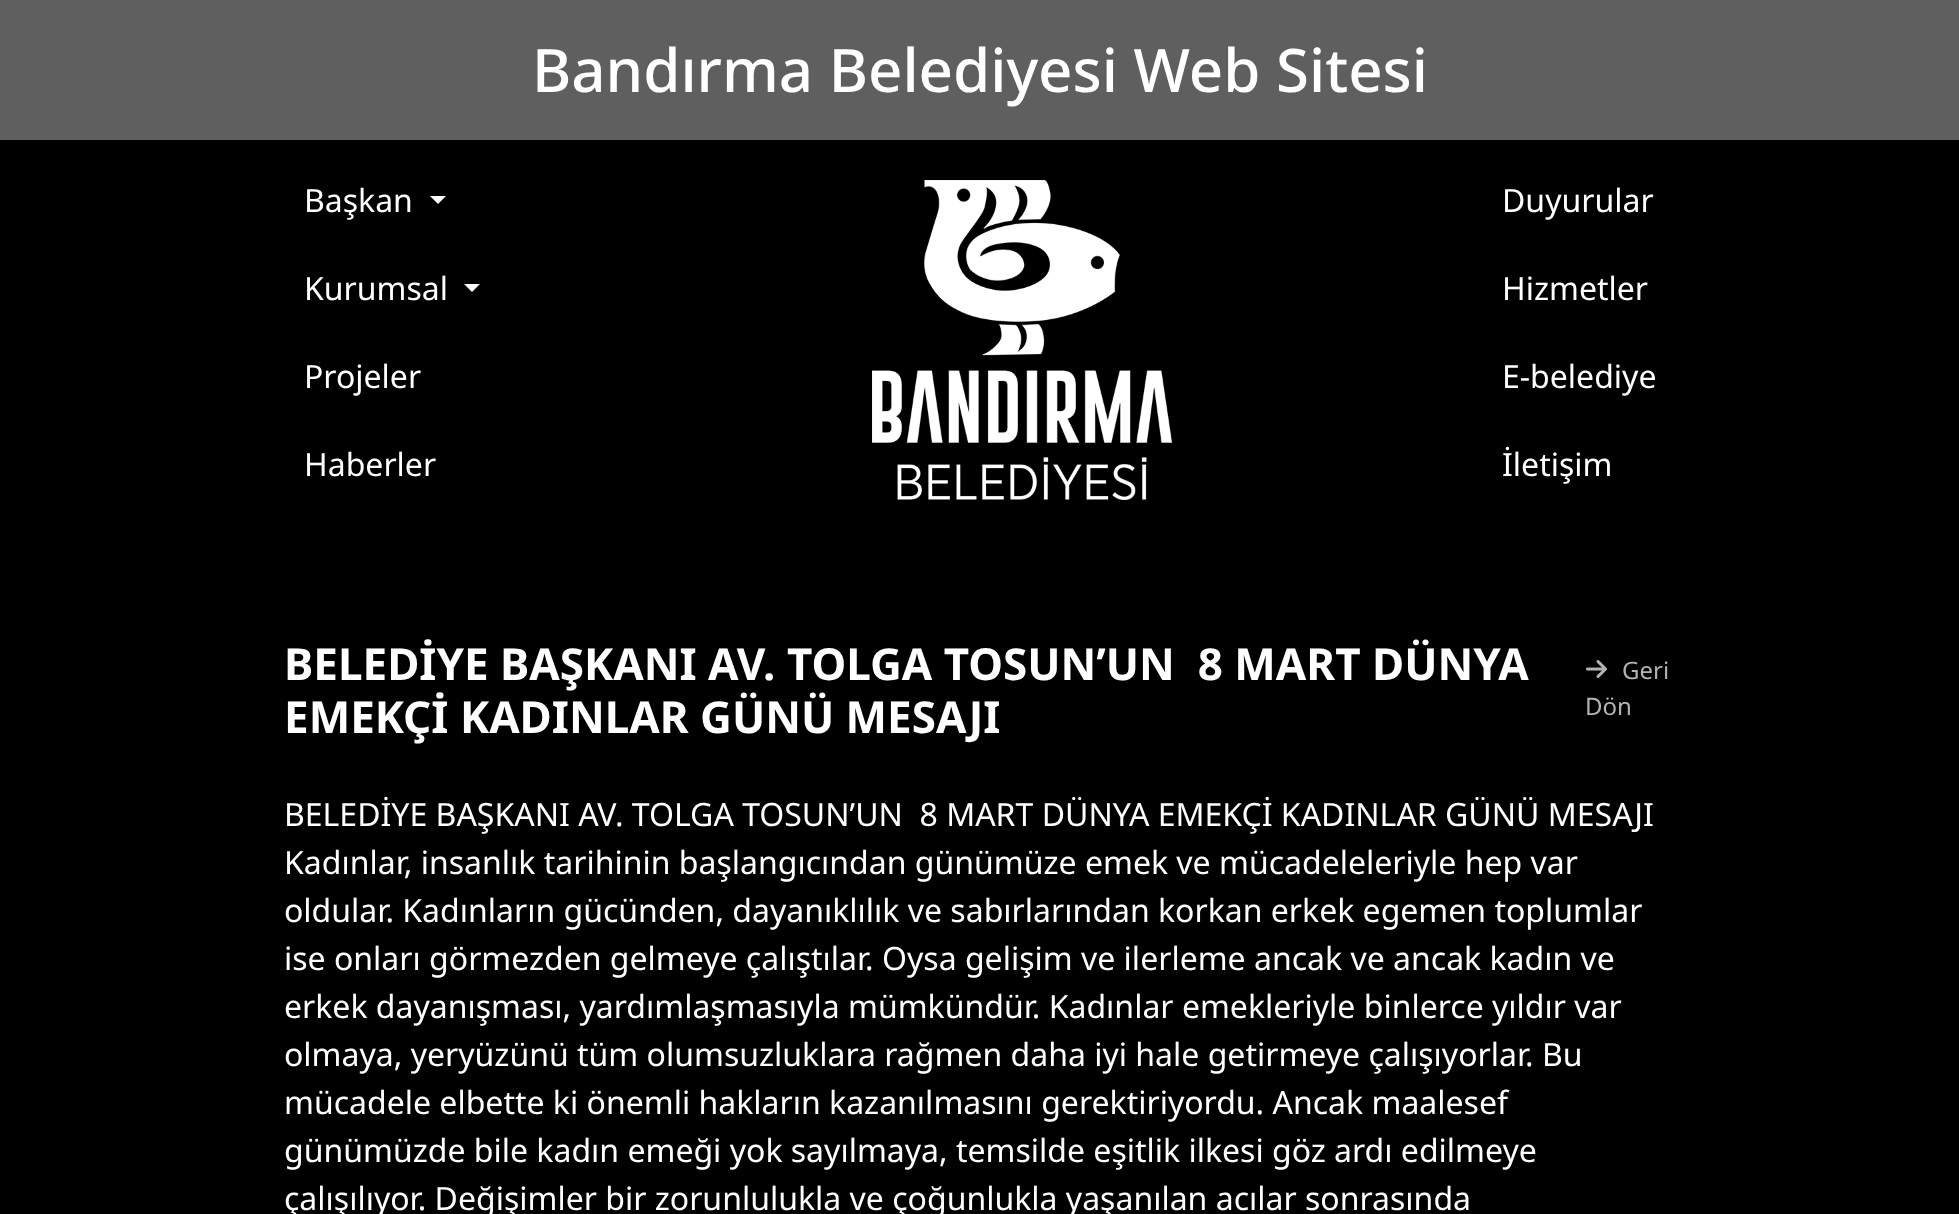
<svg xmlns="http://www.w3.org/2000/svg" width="1959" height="1214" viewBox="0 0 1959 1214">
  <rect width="100%" height="100%" fill="#000000"/>
  <rect x="0" y="0" width="1959" height="140" fill="#5f5f5f"/>
  <text x="532" y="92" font-family="Noto Sans" font-size="60" font-weight="500" fill="#ffffff">Bandırma Belediyesi Web Sitesi</text>
  <text x="304" y="212" font-family="Noto Sans" font-size="32" fill="#ffffff">Başkan</text>
  <path d="M430 196H446L438 204Z" fill="#ffffff"/>
  <text x="304" y="300" font-family="Noto Sans" font-size="32" fill="#ffffff">Kurumsal</text>
  <path d="M464 284H480L472 292Z" fill="#ffffff"/>
  <text x="304" y="388" font-family="Noto Sans" font-size="32" fill="#ffffff">Projeler</text>
  <text x="304" y="476" font-family="Noto Sans" font-size="32" fill="#ffffff">Haberler</text>
  <image x="872" y="180" width="300" height="320" href="img1.png"/>
  <text x="1502" y="212" font-family="Noto Sans" font-size="32" fill="#ffffff">Duyurular</text>
  <text x="1502" y="300" font-family="Noto Sans" font-size="32" fill="#ffffff">Hizmetler</text>
  <text x="1502" y="388" font-family="Noto Sans" font-size="32" fill="#ffffff">E-belediye</text>
  <text x="1502" y="476" font-family="Noto Sans" font-size="32" fill="#ffffff">İletişim</text>
  <text x="284" y="680" font-family="Noto Sans" font-size="44" font-weight="bold" fill="#ffffff" xml:space="preserve">BELEDİYE BAŞKANI AV. TOLGA TOSUN’UN  8 MART DÜNYA</text>
  <text x="284" y="733" font-family="Noto Sans" font-size="44" font-weight="bold" fill="#ffffff">EMEKÇİ KADINLAR GÜNÜ MESAJI</text>
  <image x="1586" y="660" width="21" height="18" href="img2.png"/>
  <text x="1622" y="679" font-family="Noto Sans" font-size="24" fill="#b3b3b3">Geri</text>
  <text x="1585" y="715" font-family="Noto Sans" font-size="24" fill="#b3b3b3">Dön</text>
  <text x="284" y="826" font-family="Noto Sans" font-size="32" fill="#ffffff" xml:space="preserve">BELEDİYE BAŞKANI AV. TOLGA TOSUN’UN  8 MART DÜNYA EMEKÇİ KADINLAR GÜNÜ MESAJI</text>
  <text x="284" y="874" font-family="Noto Sans" font-size="32" fill="#ffffff">Kadınlar, insanlık tarihinin başlangıcından günümüze emek ve mücadeleleriyle hep var</text>
  <text x="284" y="922" font-family="Noto Sans" font-size="32" fill="#ffffff">oldular. Kadınların gücünden, dayanıklılık ve sabırlarından korkan erkek egemen toplumlar</text>
  <text x="284" y="970" font-family="Noto Sans" font-size="32" fill="#ffffff">ise onları görmezden gelmeye çalıştılar. Oysa gelişim ve ilerleme ancak ve ancak kadın ve</text>
  <text x="284" y="1018" font-family="Noto Sans" font-size="32" fill="#ffffff">erkek dayanışması, yardımlaşmasıyla mümkündür. Kadınlar emekleriyle binlerce yıldır var</text>
  <text x="284" y="1066" font-family="Noto Sans" font-size="32" fill="#ffffff">olmaya, yeryüzünü tüm olumsuzluklara rağmen daha iyi hale getirmeye çalışıyorlar. Bu</text>
  <text x="284" y="1114" font-family="Noto Sans" font-size="32" fill="#ffffff">mücadele elbette ki önemli hakların kazanılmasını gerektiriyordu. Ancak maalesef</text>
  <text x="284" y="1162" font-family="Noto Sans" font-size="32" fill="#ffffff">günümüzde bile kadın emeği yok sayılmaya, temsilde eşitlik ilkesi göz ardı edilmeye</text>
  <text x="284" y="1210" font-family="Noto Sans" font-size="32" fill="#ffffff">çalışılıyor. Değişimler bir zorunlulukla ve çoğunlukla yaşanılan acılar sonrasında</text>
</svg>
